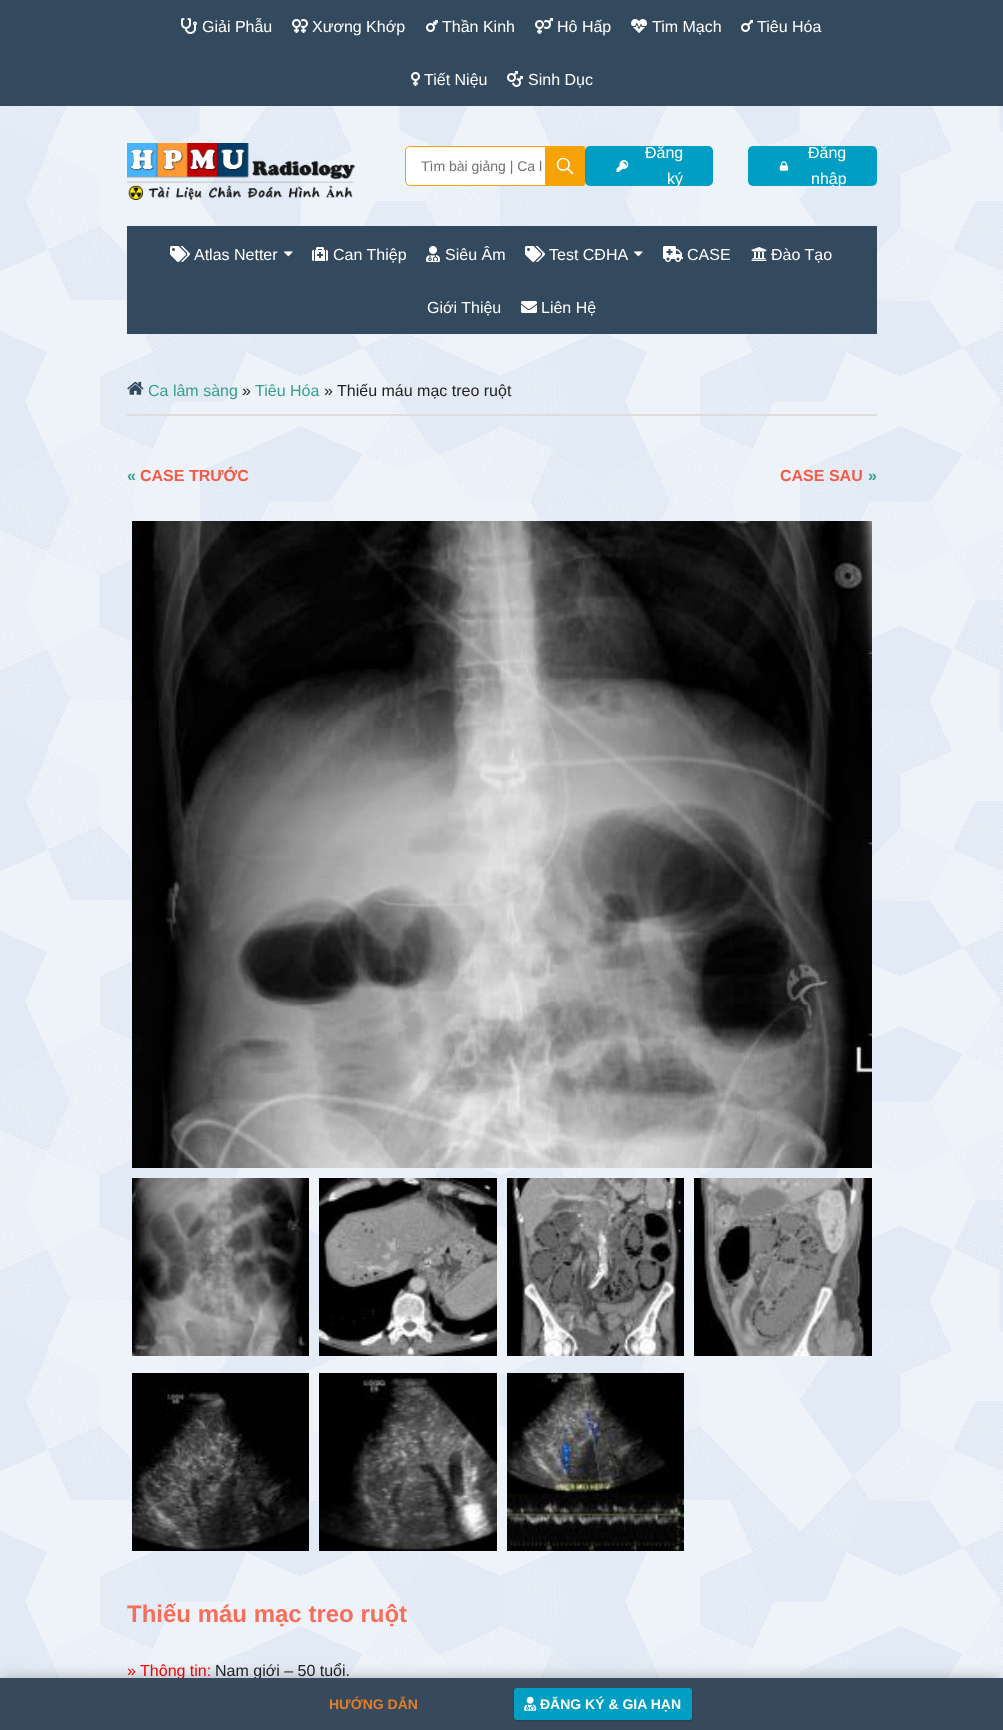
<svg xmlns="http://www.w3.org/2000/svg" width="1003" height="1730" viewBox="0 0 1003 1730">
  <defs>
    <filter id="blur1" x="-50%" y="-200%" width="200%" height="500%"><feGaussianBlur stdDeviation="7.5"/></filter>
    <filter id="blur2" x="-50%" y="-200%" width="200%" height="500%"><feGaussianBlur stdDeviation="1"/></filter>
  </defs>
  <rect width="100%" height="100%" fill="#ffffff"/>
  <image x="0" y="106" width="1003" height="1572" href="img1.png"/>
  <rect x="0" y="0" width="1003" height="106" fill="#33495d"/>
  <image x="181" y="18" width="16" height="16" href="img2.png"/>
  <text x="202" y="32" font-family="Liberation Sans" font-size="16" fill="#ffffff">Giải Phẫu</text>
  <image x="292" y="19" width="16" height="14" href="img3.png"/>
  <text x="312" y="32" font-family="Liberation Sans" font-size="16" fill="#ffffff">Xương Khớp</text>
  <image x="426" y="20" width="12" height="12" href="img4.png"/>
  <text x="442" y="32" font-family="Liberation Sans" font-size="16" fill="#ffffff">Thần Kinh</text>
  <image x="535" y="18" width="18" height="16" href="img5.png"/>
  <text x="557" y="32" font-family="Liberation Sans" font-size="16" fill="#ffffff">Hô Hấp</text>
  <image x="631" y="19" width="16" height="14" href="img6.png"/>
  <text x="652" y="32" font-family="Liberation Sans" font-size="16" fill="#ffffff">Tim Mạch</text>
  <image x="741" y="20" width="12" height="12" href="img7.png"/>
  <text x="757" y="32" font-family="Liberation Sans" font-size="16" fill="#ffffff">Tiêu Hóa</text>
  <image x="411" y="72" width="9" height="14" href="img8.png"/>
  <text x="424" y="85" font-family="Liberation Sans" font-size="16" fill="#ffffff">Tiết Niệu</text>
  <image x="507" y="71" width="16" height="16" href="img9.png"/>
  <text x="528" y="85" font-family="Liberation Sans" font-size="16" fill="#ffffff">Sinh Dục</text>
  <rect x="127" y="226" width="750" height="108" fill="#33495d"/>
  <image x="127" y="143" width="228" height="57" href="img10.png"/>
  <rect x="405.5" y="146.5" width="179" height="39" rx="4.5" fill="#ffffff" stroke="#f7a308"/>
  <text x="421" y="171" font-family="Liberation Sans" font-size="14" fill="#727272">Tìm bài giảng | Ca l</text>
  <rect x="545" y="146" width="40" height="40" rx="2" fill="#f7a308"/>
  <path d="M572.5 173.5L567.5 168.5M569 164.5C569 172 557.5 172 557.5 164.5C557.5 156.5 569 156.5 569 164.5Z" fill="none" stroke="#ffffff" stroke-width="1.7" stroke-linecap="round" stroke-linejoin="round"/>
  <rect x="585" y="146" width="128" height="40" rx="5" fill="#009ec3"/>
  <text x="645" y="158" font-family="Liberation Sans" font-size="16" fill="#ffffff">Đăng</text>
  <image x="616" y="160" width="13" height="12" href="img11.png"/>
  <text x="667" y="184" font-family="Liberation Sans" font-size="16" fill="#ffffff">ký</text>
  <rect x="748" y="146" width="129" height="40" rx="5" fill="#009ec3"/>
  <text x="808" y="158" font-family="Liberation Sans" font-size="16" fill="#ffffff">Đăng</text>
  <image x="779" y="161" width="10" height="10" href="img12.png"/>
  <text x="811" y="184" font-family="Liberation Sans" font-size="16" fill="#ffffff">nhập</text>
  <image x="170" y="246" width="20" height="16" href="img13.png"/>
  <text x="194" y="260" font-family="Liberation Sans" font-size="16" fill="#ffffff">Atlas Netter</text>
  <image x="284" y="251" width="9" height="6" href="img14.png"/>
  <image x="312" y="247" width="16" height="14" href="img15.png"/>
  <text x="333" y="260" font-family="Liberation Sans" font-size="16" fill="#ffffff">Can Thiệp</text>
  <image x="426" y="246" width="14" height="16" href="img16.png"/>
  <text x="445" y="260" font-family="Liberation Sans" font-size="16" fill="#ffffff">Siêu Âm</text>
  <image x="525" y="246" width="20" height="16" href="img13.png"/>
  <text x="549" y="260" font-family="Liberation Sans" font-size="16" fill="#ffffff">Test CĐHA</text>
  <image x="634" y="251" width="9" height="6" href="img14.png"/>
  <image x="663" y="246" width="20" height="16" href="img17.png"/>
  <text x="687" y="260" font-family="Liberation Sans" font-size="16" fill="#ffffff">CASE</text>
  <image x="751" y="247" width="16" height="14" href="img18.png"/>
  <text x="771" y="260" font-family="Liberation Sans" font-size="16" fill="#ffffff">Đào Tạo</text>
  <text x="427" y="313" font-family="Liberation Sans" font-size="16" fill="#ffffff">Giới Thiệu</text>
  <image x="521" y="301" width="16" height="12" href="img19.png"/>
  <text x="541" y="313" font-family="Liberation Sans" font-size="16" fill="#ffffff">Liên Hệ</text>
  <rect x="127" y="414" width="750" height="2" fill="#dddddd"/>
  <image x="127" y="381" width="17" height="14" href="img20.png"/>
  <text x="148" y="396" font-family="Liberation Sans" font-size="16" fill="#349f90">Ca lâm sàng</text>
  <text x="242" y="396" font-family="Liberation Sans" font-size="16" fill="#222222">»</text>
  <text x="255" y="396" font-family="Liberation Sans" font-size="16" fill="#349f90">Tiêu Hóa</text>
  <text x="324" y="396" font-family="Liberation Sans" font-size="16" fill="#222222">» Thiếu máu mạc treo ruột</text>
  <text x="127" y="481" font-family="Liberation Sans" font-size="16" font-weight="bold" fill="#349f90">«</text>
  <text x="140" y="481" font-family="Liberation Sans" font-size="16" font-weight="bold" fill="#f65b47">CASE TRƯỚC</text>
  <text x="780" y="481" font-family="Liberation Sans" font-size="16" font-weight="bold" fill="#f65b47">CASE SAU</text>
  <text x="868" y="481" font-family="Liberation Sans" font-size="16" font-weight="bold" fill="#349f90">»</text>
  <image x="132" y="521" width="740" height="647" href="img21.png"/>
  <image x="132" y="1178" width="177" height="178" href="img22.png"/>
  <image x="319" y="1178" width="178" height="178" href="img23.png"/>
  <image x="507" y="1178" width="177" height="178" href="img24.png"/>
  <image x="694" y="1178" width="178" height="178" href="img25.png"/>
  <image x="132" y="1373" width="177" height="178" href="img26.png"/>
  <image x="319" y="1373" width="178" height="178" href="img27.png"/>
  <image x="507" y="1373" width="177" height="178" href="img28.png"/>
  <text x="127" y="1622" font-family="Liberation Sans" font-size="24" font-weight="bold" fill="#f96e5b">Thiếu máu mạc treo ruột</text>
  <text x="127" y="1676" font-family="Liberation Sans" font-size="16" fill="#ff0000">» Thông tin:</text>
  <text x="215" y="1676" font-family="Liberation Sans" font-size="16" fill="#222222">Nam giới – 50 tuổi.</text>
  <rect x="0" y="1678" width="1003" height="52" fill="#000000" fill-opacity="0.28" filter="url(#blur1)"/>
  <rect x="0" y="1678" width="1003" height="52" fill="#36495d"/>
  <text x="329" y="1709" font-family="Liberation Sans" font-size="14" font-weight="bold" fill="#e67e23">HƯỚNG DẪN</text>
  <rect x="514" y="1689" width="178" height="32" rx="3" fill="#000000" fill-opacity="0.2" filter="url(#blur2)"/>
  <rect x="514" y="1688" width="178" height="32" rx="3" fill="#009ec3"/>
  <image x="524" y="1696" width="13" height="15" href="img29.png"/>
  <text x="540" y="1709" font-family="Liberation Sans" font-size="14" font-weight="bold" fill="#ffffff">ĐĂNG KÝ &amp; GIA HẠN</text>
</svg>
